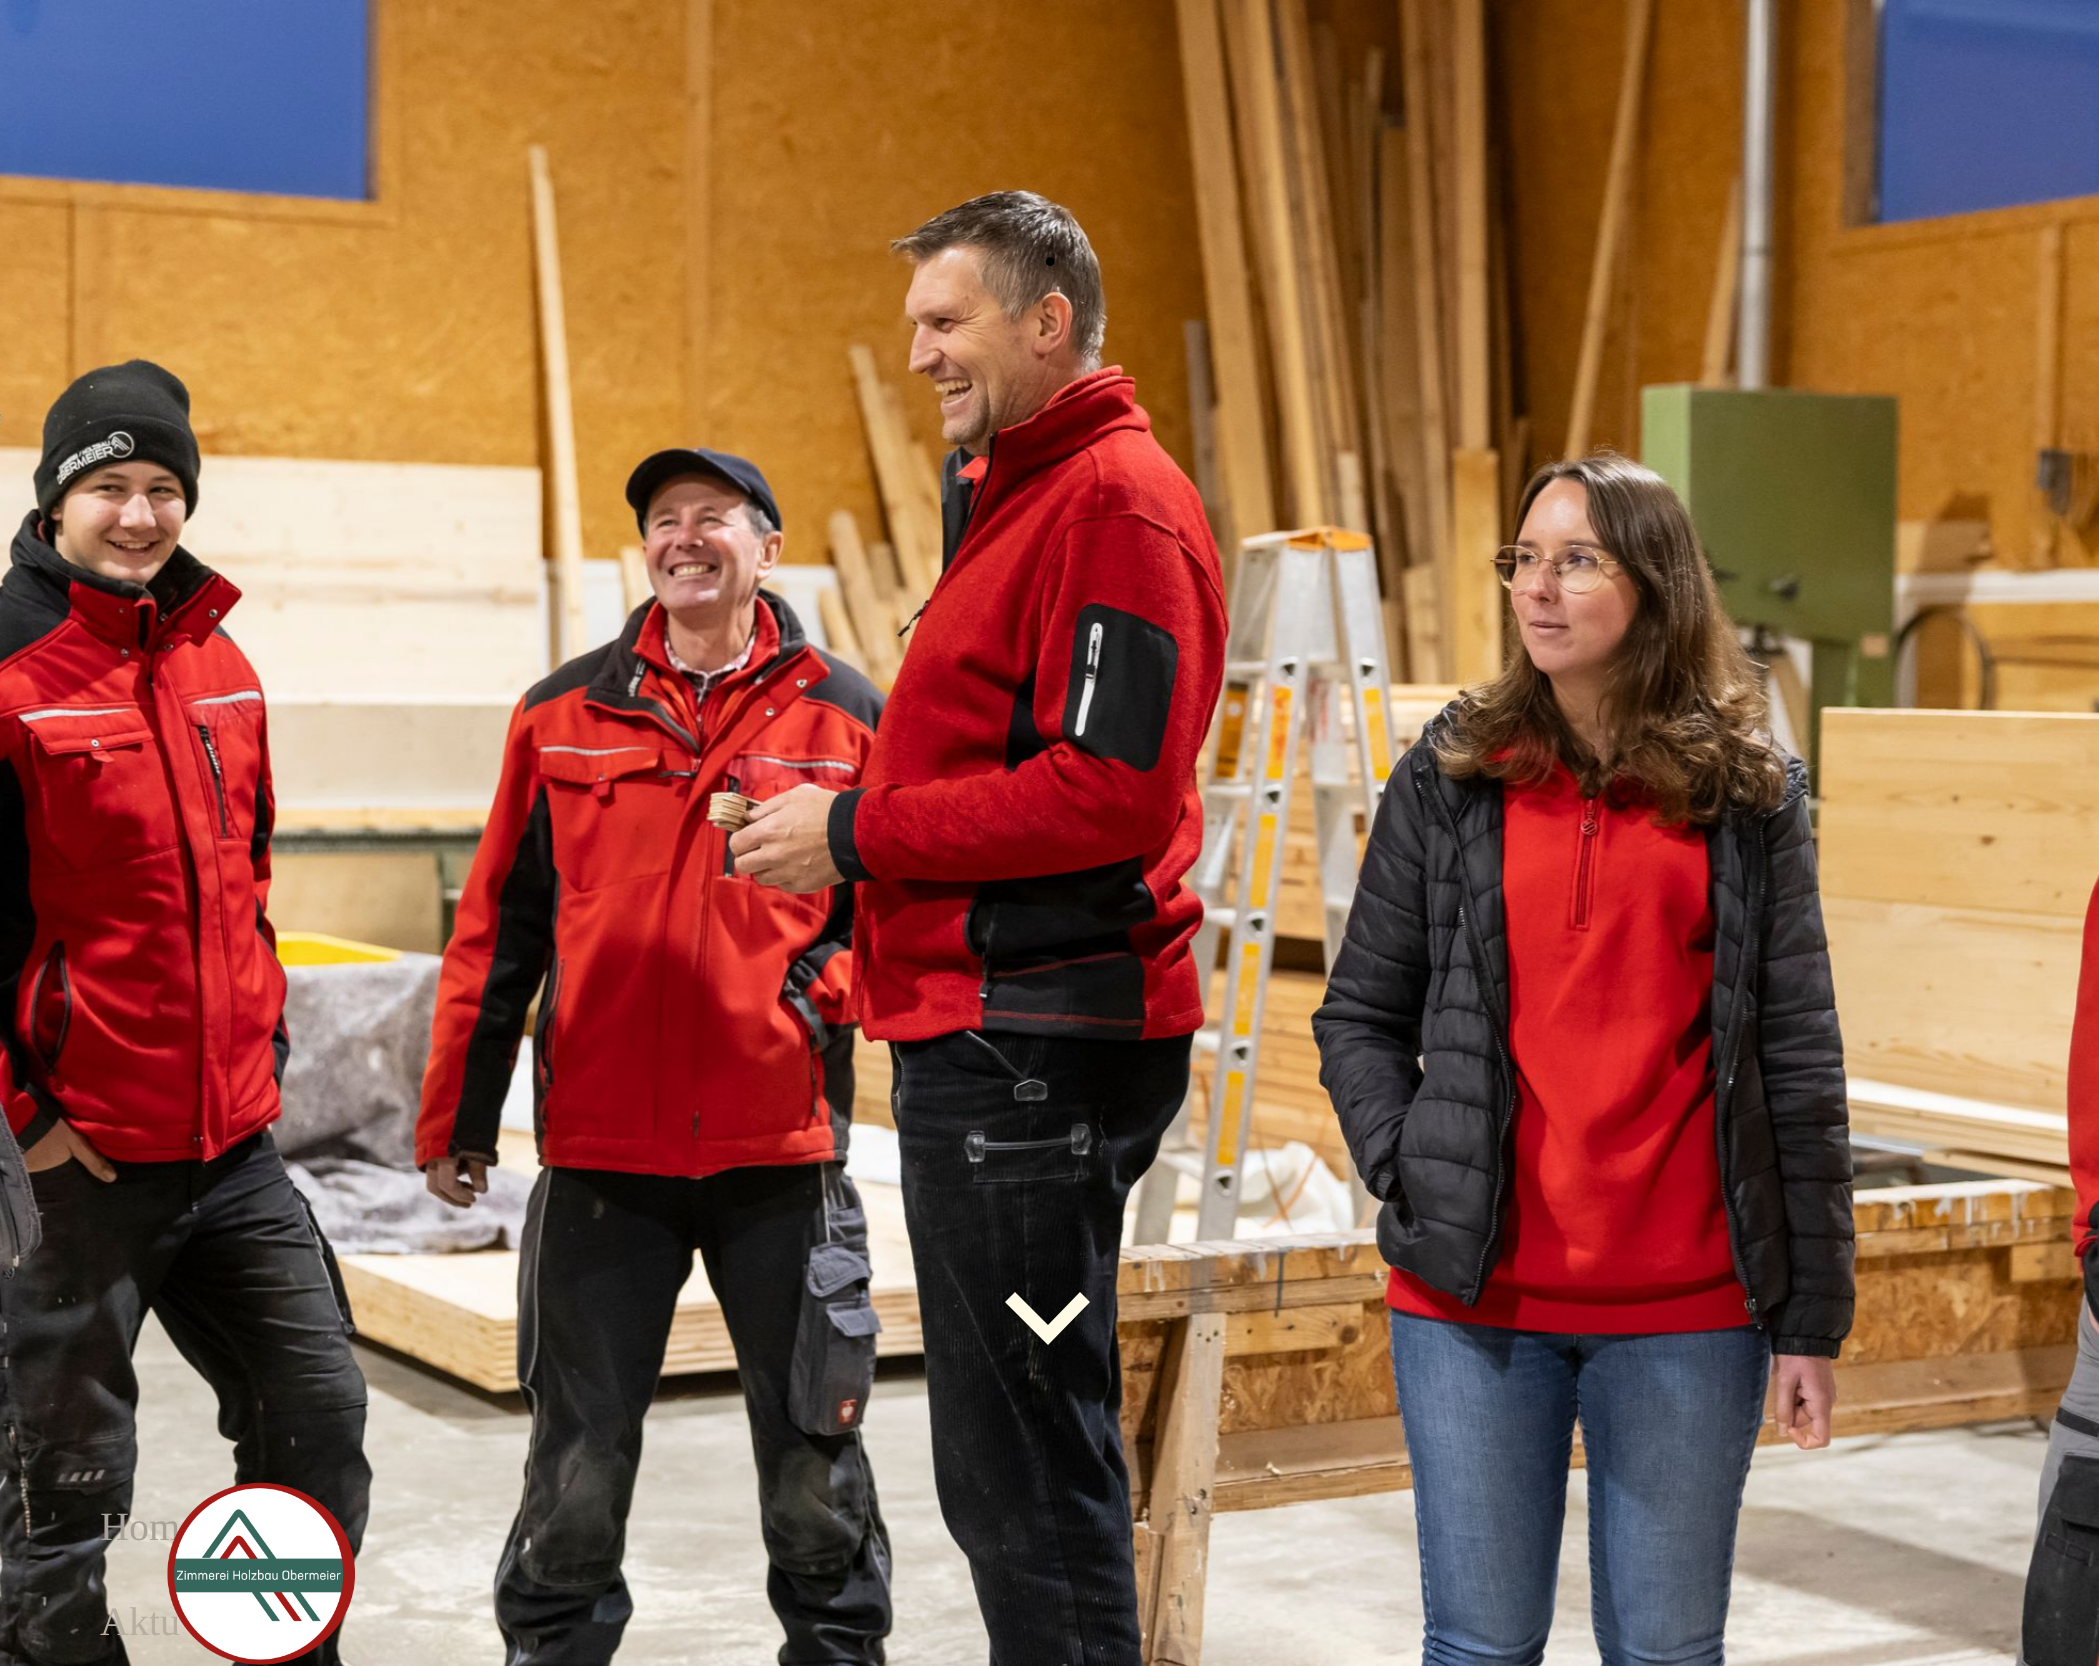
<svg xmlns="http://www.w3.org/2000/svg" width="2099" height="1666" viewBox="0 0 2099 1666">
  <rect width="100%" height="100%" fill="#ffffff"/>
  <image x="0" y="0" width="2099" height="1666" href="img1.png"/>
  <path d="M1080 1292L1048 1325L1015 1292L1005 1302L1048 1345L1090 1302Z" fill="#fffae6" fill-rule="evenodd"/>
  <text x="1041" y="265" font-family="Liberation Serif" font-size="74" fill="#000000">.</text>
  <text x="100" y="1540" font-family="Liberation Serif" font-size="40" fill="#a7a198">Hom</text>
  <text x="100" y="1635" font-family="Liberation Serif" font-size="40" fill="#b6aea1">Aktu</text>
  <image x="167" y="1482" width="188" height="183" href="img2.png"/>
</svg>
